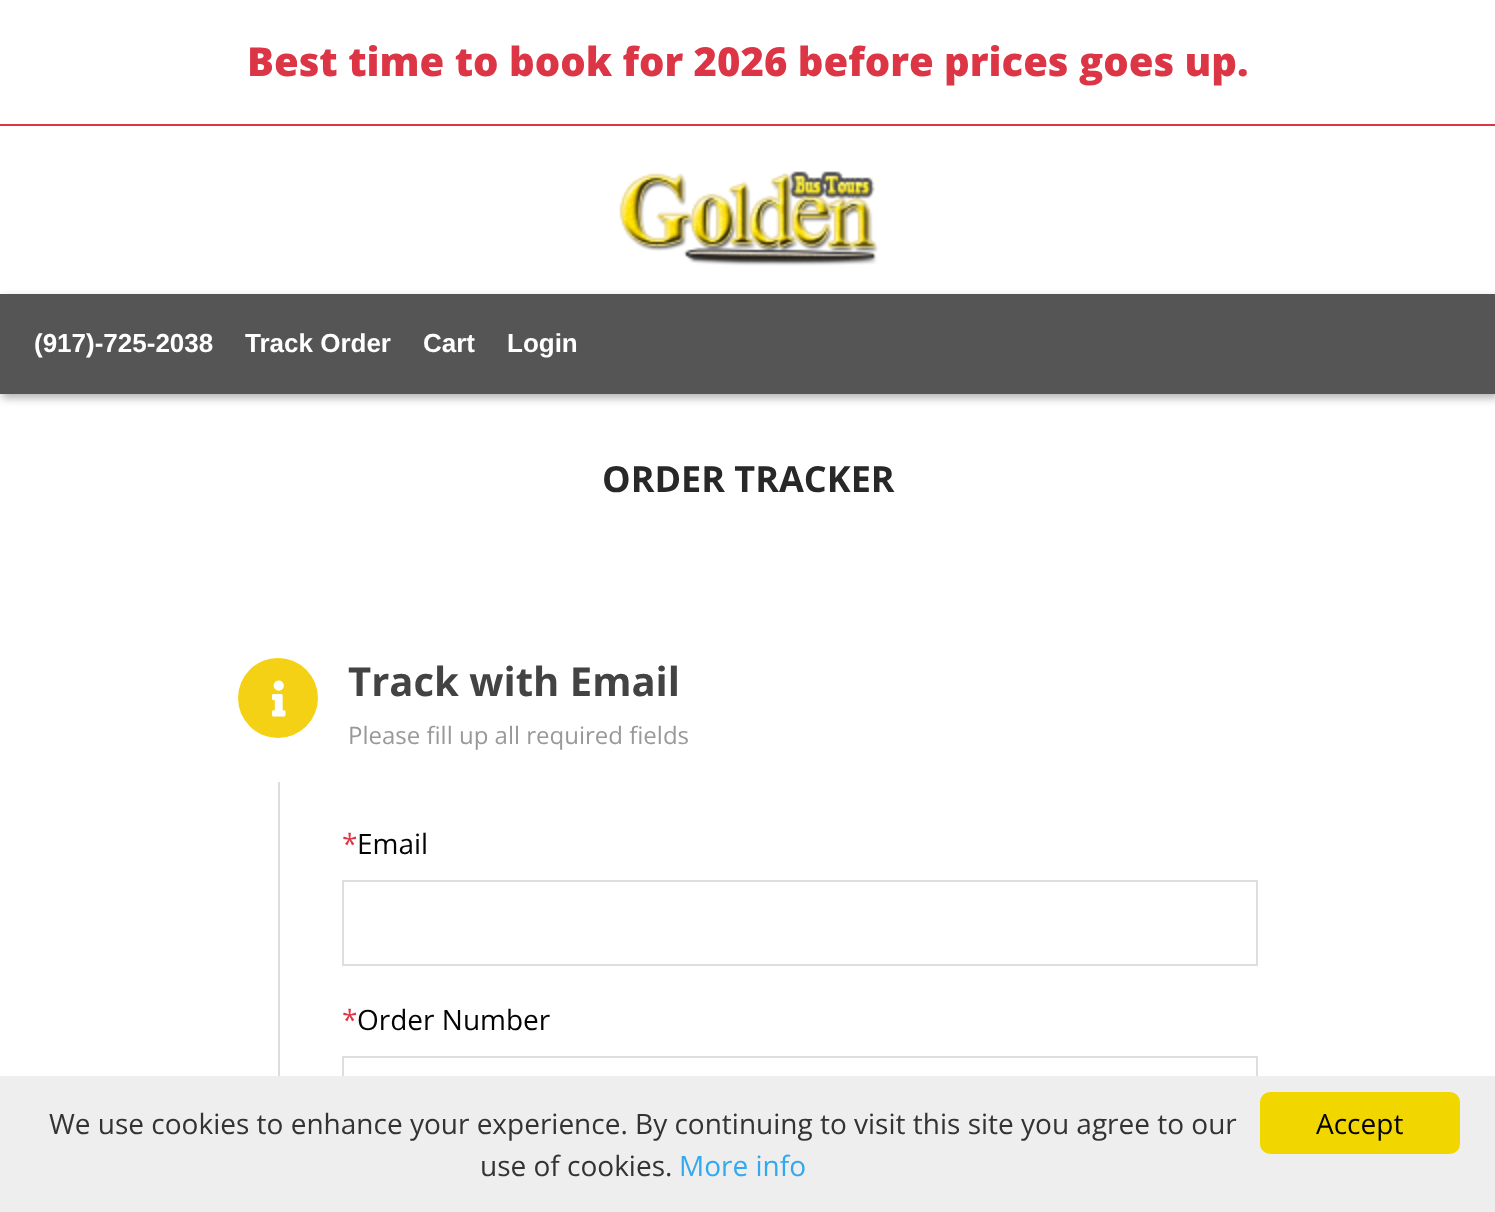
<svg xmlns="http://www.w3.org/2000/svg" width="1495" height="1212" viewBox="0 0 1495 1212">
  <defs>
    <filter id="blur1" x="-50%" y="-200%" width="200%" height="500%"><feGaussianBlur stdDeviation="4"/></filter>
  </defs>
  <rect width="100%" height="100%" fill="#ffffff"/>
  <rect x="0" y="124" width="1495" height="2" fill="#dc3545"/>
  <text x="247" y="76" font-family="Open Sans" font-size="40" font-weight="800" fill="#dc3545">Best time to book for 2026 before prices goes up.</text>
  <image x="619" y="171" width="259" height="95" href="img1.png"/>
  <rect x="2" y="298" width="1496" height="100" fill="#000000" fill-opacity="0.3" filter="url(#blur1)"/>
  <rect x="0" y="294" width="1495" height="100" fill="#555555"/>
  <text x="34" y="352" font-family="Liberation Sans" font-size="26" font-weight="bold" fill="#ffffff">(917)-725-2038</text>
  <text x="245" y="352" font-family="Liberation Sans" font-size="26" font-weight="bold" fill="#ffffff">Track Order</text>
  <text x="423" y="352" font-family="Liberation Sans" font-size="26" font-weight="bold" fill="#ffffff">Cart</text>
  <text x="507" y="352" font-family="Liberation Sans" font-size="26" font-weight="bold" fill="#ffffff">Login</text>
  <text x="602" y="492" font-family="Open Sans" font-size="36" font-weight="bold" fill="#282828">ORDER TRACKER</text>
  <circle cx="278" cy="698" r="40" fill="#f4d114"/>
  <image x="272" y="680" width="14" height="37" href="img2.png"/>
  <text x="348" y="696" font-family="Open Sans" font-size="40" font-weight="bold" fill="#444343">Track with Email</text>
  <text x="348" y="744" font-family="Open Sans" font-size="24" fill="#999999">Please fill up all required fields</text>
  <rect x="278" y="782" width="2" height="294" fill="#dddddd"/>
  <text x="342" y="854" font-family="Open Sans" font-size="28" fill="#dc3545">*</text>
  <text x="357" y="854" font-family="Open Sans" font-size="28" fill="#030303">Email</text>
  <rect x="343" y="881" width="914" height="84" fill="none" stroke="#dedede" stroke-width="2"/>
  <text x="342" y="1030" font-family="Open Sans" font-size="28" fill="#dc3545">*</text>
  <text x="357" y="1030" font-family="Open Sans" font-size="28" fill="#030303">Order Number</text>
  <rect x="343" y="1057" width="914" height="84" fill="none" stroke="#dedede" stroke-width="2"/>
  <rect x="0" y="1076" width="1495" height="136" fill="#eeeeee"/>
  <text x="49" y="1134" font-family="Open Sans" font-size="28" fill="#333333">We use cookies to enhance your experience. By continuing to visit this site you agree to our</text>
  <text x="480" y="1176" font-family="Open Sans" font-size="28" fill="#333333">use of cookies.</text>
  <text x="679" y="1176" font-family="Open Sans" font-size="28" fill="#31a8f0">More info</text>
  <rect x="1260" y="1092" width="200" height="62" rx="10" fill="#f1d600"/>
  <text x="1316" y="1134" font-family="Open Sans" font-size="28" fill="#030303">Accept</text>
</svg>
